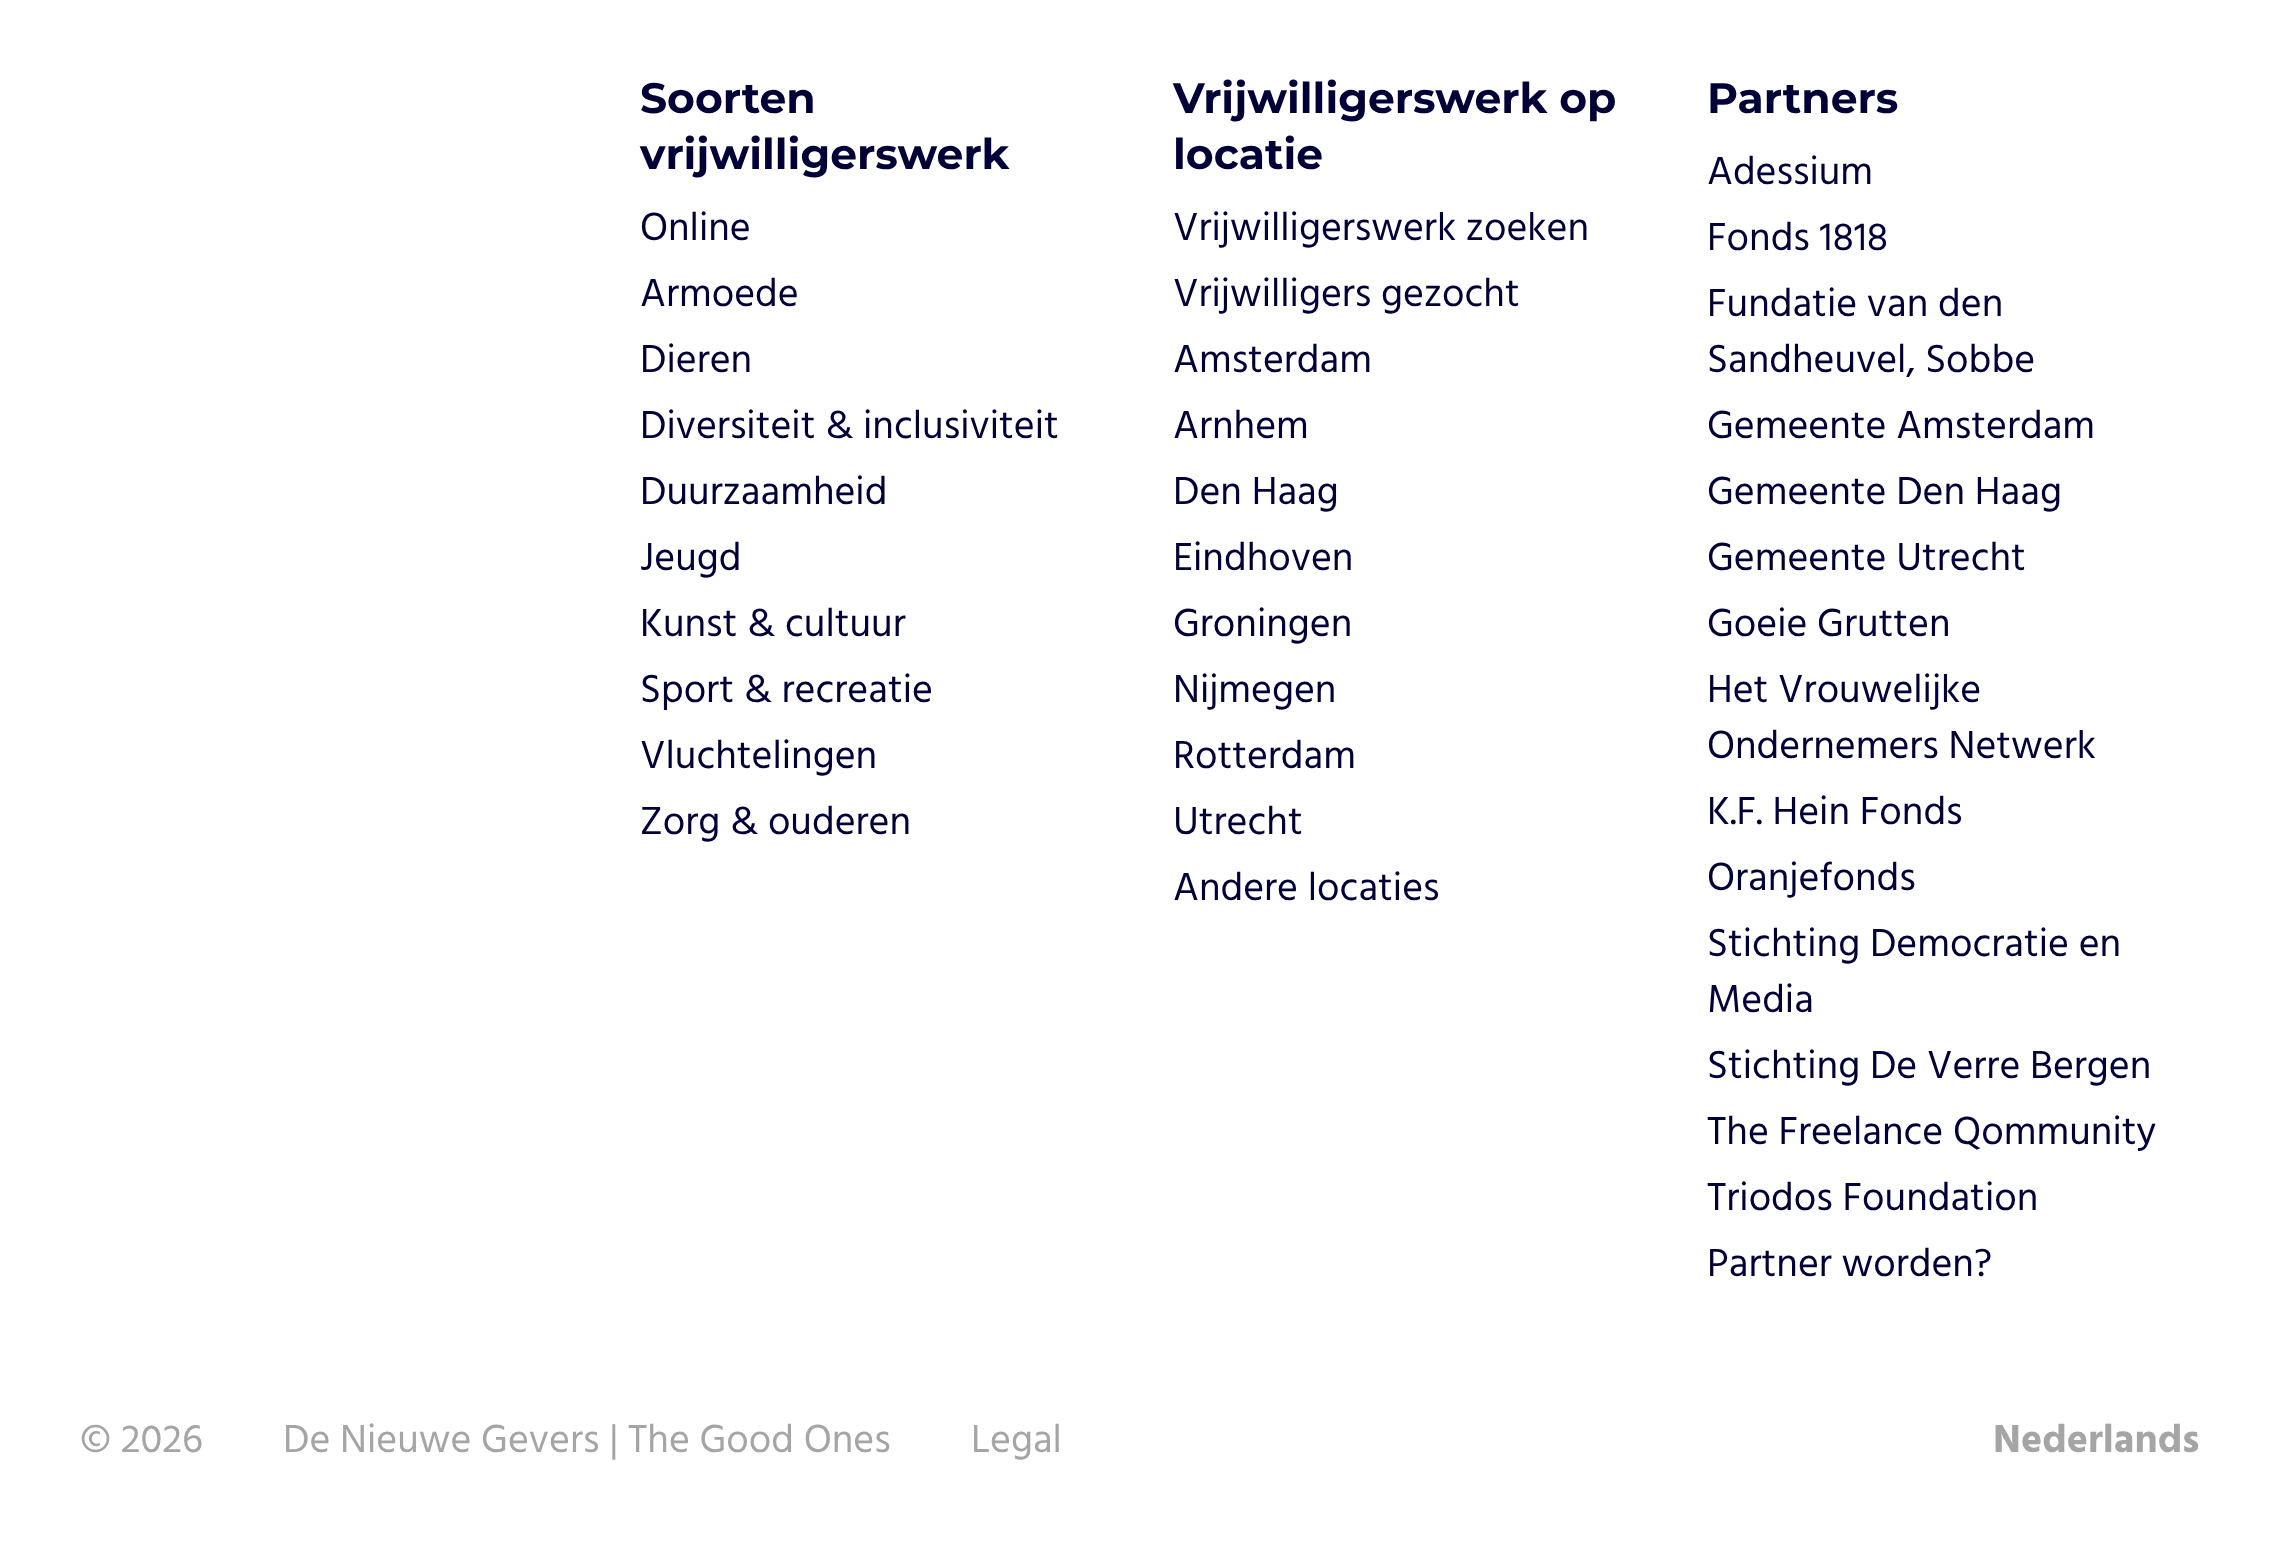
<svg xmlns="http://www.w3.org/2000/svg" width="2280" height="1548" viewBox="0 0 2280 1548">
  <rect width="100%" height="100%" fill="#ffffff"/>
  <text x="640" y="113" font-family="Montserrat" font-size="42.5" font-weight="bold" fill="#010036">Soorten</text>
  <text x="640" y="169" font-family="Montserrat" font-size="42.5" font-weight="bold" fill="#010036">vrijwilligerswerk</text>
  <text x="640" y="240" font-family="Hind" font-size="40" fill="#010036">Online</text>
  <text x="640" y="306" font-family="Hind" font-size="40" fill="#010036">Armoede</text>
  <text x="640" y="372" font-family="Hind" font-size="40" fill="#010036">Dieren</text>
  <text x="640" y="438" font-family="Hind" font-size="40" fill="#010036">Diversiteit &amp; inclusiviteit</text>
  <text x="640" y="504" font-family="Hind" font-size="40" fill="#010036">Duurzaamheid</text>
  <text x="640" y="570" font-family="Hind" font-size="40" fill="#010036">Jeugd</text>
  <text x="640" y="636" font-family="Hind" font-size="40" fill="#010036">Kunst &amp; cultuur</text>
  <text x="640" y="702" font-family="Hind" font-size="40" fill="#010036">Sport &amp; recreatie</text>
  <text x="640" y="768" font-family="Hind" font-size="40" fill="#010036">Vluchtelingen</text>
  <text x="640" y="834" font-family="Hind" font-size="40" fill="#010036">Zorg &amp; ouderen</text>
  <text x="1173" y="113" font-family="Montserrat" font-size="42.5" font-weight="bold" fill="#010036">Vrijwilligerswerk op</text>
  <text x="1173" y="169" font-family="Montserrat" font-size="42.5" font-weight="bold" fill="#010036">locatie</text>
  <text x="1173" y="240" font-family="Hind" font-size="40" fill="#010036">Vrijwilligerswerk zoeken</text>
  <text x="1173" y="306" font-family="Hind" font-size="40" fill="#010036">Vrijwilligers gezocht</text>
  <text x="1173" y="372" font-family="Hind" font-size="40" fill="#010036">Amsterdam</text>
  <text x="1173" y="438" font-family="Hind" font-size="40" fill="#010036">Arnhem</text>
  <text x="1173" y="504" font-family="Hind" font-size="40" fill="#010036">Den Haag</text>
  <text x="1173" y="570" font-family="Hind" font-size="40" fill="#010036">Eindhoven</text>
  <text x="1173" y="636" font-family="Hind" font-size="40" fill="#010036">Groningen</text>
  <text x="1173" y="702" font-family="Hind" font-size="40" fill="#010036">Nijmegen</text>
  <text x="1173" y="768" font-family="Hind" font-size="40" fill="#010036">Rotterdam</text>
  <text x="1173" y="834" font-family="Hind" font-size="40" fill="#010036">Utrecht</text>
  <text x="1173" y="900" font-family="Hind" font-size="40" fill="#010036">Andere locaties</text>
  <text x="1707" y="113" font-family="Montserrat" font-size="42.5" font-weight="bold" fill="#010036">Partners</text>
  <text x="1707" y="184" font-family="Hind" font-size="40" fill="#010036">Adessium</text>
  <text x="1707" y="250" font-family="Hind" font-size="40" fill="#010036">Fonds 1818</text>
  <text x="1707" y="316" font-family="Hind" font-size="40" fill="#010036">Fundatie van den</text>
  <text x="1707" y="372" font-family="Hind" font-size="40" fill="#010036">Sandheuvel, Sobbe</text>
  <text x="1707" y="438" font-family="Hind" font-size="40" fill="#010036">Gemeente Amsterdam</text>
  <text x="1707" y="504" font-family="Hind" font-size="40" fill="#010036">Gemeente Den Haag</text>
  <text x="1707" y="570" font-family="Hind" font-size="40" fill="#010036">Gemeente Utrecht</text>
  <text x="1707" y="636" font-family="Hind" font-size="40" fill="#010036">Goeie Grutten</text>
  <text x="1707" y="702" font-family="Hind" font-size="40" fill="#010036">Het Vrouwelijke</text>
  <text x="1707" y="758" font-family="Hind" font-size="40" fill="#010036">Ondernemers Netwerk</text>
  <text x="1707" y="824" font-family="Hind" font-size="40" fill="#010036">K.F. Hein Fonds</text>
  <text x="1707" y="890" font-family="Hind" font-size="40" fill="#010036">Oranjefonds</text>
  <text x="1707" y="956" font-family="Hind" font-size="40" fill="#010036">Stichting Democratie en</text>
  <text x="1707" y="1012" font-family="Hind" font-size="40" fill="#010036">Media</text>
  <text x="1707" y="1078" font-family="Hind" font-size="40" fill="#010036">Stichting De Verre Bergen</text>
  <text x="1707" y="1144" font-family="Hind" font-size="40" fill="#010036">The Freelance Qommunity</text>
  <text x="1707" y="1210" font-family="Hind" font-size="40" fill="#010036">Triodos Foundation</text>
  <text x="1707" y="1276" font-family="Hind" font-size="40" fill="#010036">Partner worden?</text>
  <text x="80" y="1452" font-family="Hind" font-size="40" fill="#a5a5a5">© 2026</text>
  <text x="283" y="1452" font-family="Hind" font-size="40" fill="#a5a5a5">De Nieuwe Gevers | The Good Ones</text>
  <text x="971" y="1452" font-family="Hind" font-size="40" fill="#a5a5a5">Legal</text>
  <text x="1993" y="1452" font-family="Hind" font-size="40" font-weight="bold" fill="#a5a5a5">Nederlands</text>
</svg>
